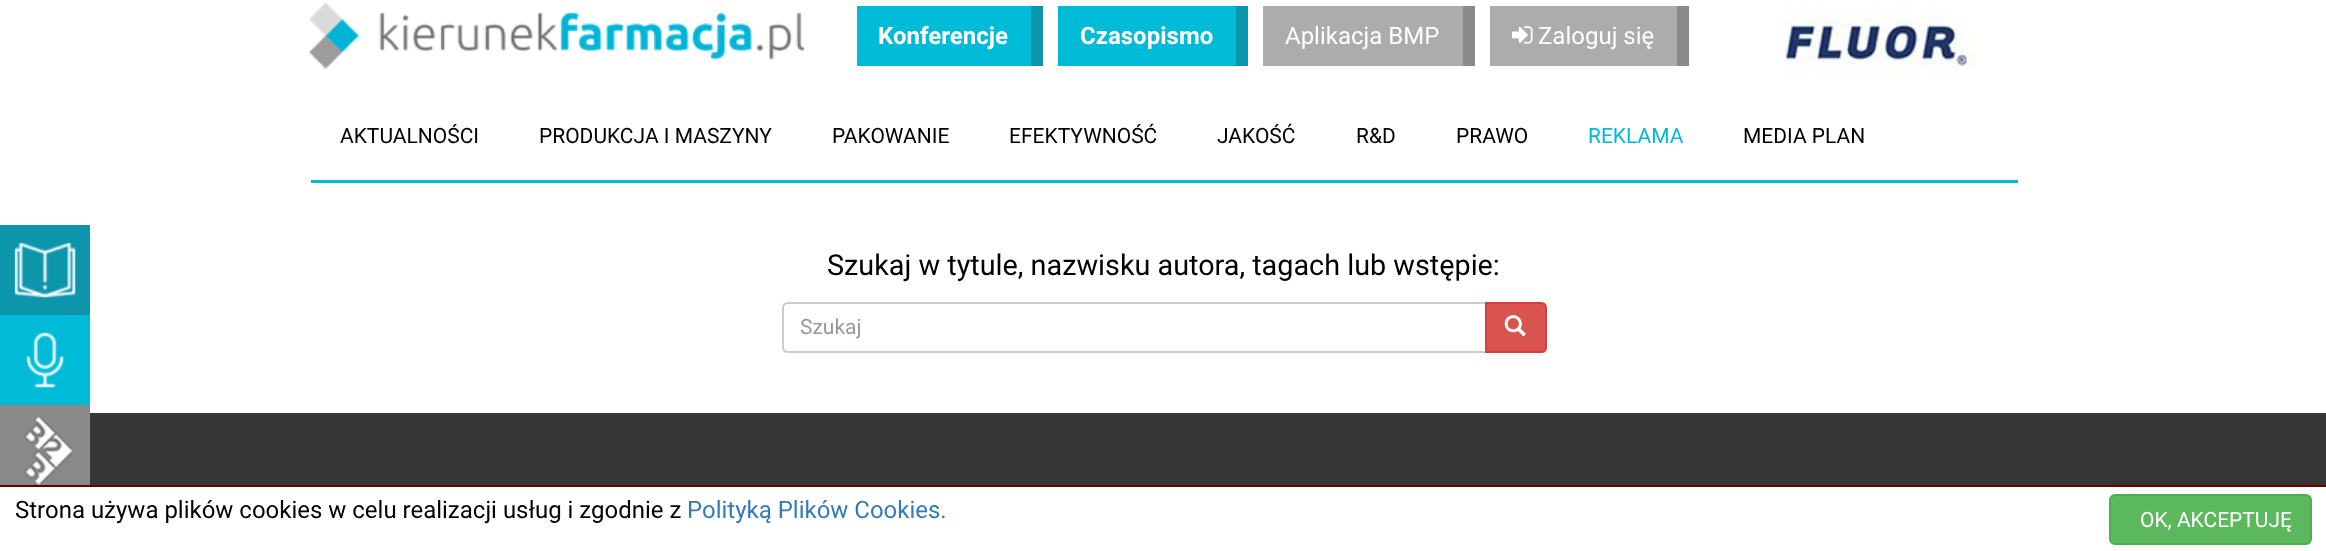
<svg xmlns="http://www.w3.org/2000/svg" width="2326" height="551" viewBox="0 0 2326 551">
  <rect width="100%" height="100%" fill="#ffffff"/>
  <image x="309" y="2" width="495" height="67" href="img1.png"/>
  <rect x="857" y="6" width="174" height="60" fill="#00bbd7"/>
  <rect x="1031" y="6" width="12" height="60" fill="#0d96ab"/>
  <text x="878" y="44" font-family="Roboto" font-size="24" font-weight="bold" fill="#ffffff">Konferencje</text>
  <rect x="1058" y="6" width="178" height="60" fill="#00bbd7"/>
  <rect x="1236" y="6" width="12" height="60" fill="#0d96ab"/>
  <text x="1080" y="44" font-family="Roboto" font-size="24" font-weight="bold" fill="#ffffff">Czasopismo</text>
  <rect x="1263" y="6" width="200" height="60" fill="#acacac"/>
  <rect x="1463" y="6" width="12" height="60" fill="#898989"/>
  <text x="1285" y="44" font-family="Roboto" font-size="24" fill="#ffffff">Aplikacja BMP</text>
  <rect x="1490" y="6" width="187" height="60" fill="#acacac"/>
  <rect x="1677" y="6" width="12" height="60" fill="#898989"/>
  <image x="1512" y="26" width="21" height="18" href="img2.png"/>
  <text x="1538" y="44" font-family="Roboto" font-size="24" fill="#ffffff">Zaloguj się</text>
  <image x="1783" y="6" width="193" height="72" href="img3.png"/>
  <rect x="311" y="180" width="1707" height="3" fill="#00bbd7"/>
  <text x="340" y="143" font-family="Roboto" font-size="21" fill="#000000">AKTUALNOŚCI</text>
  <text x="539" y="143" font-family="Roboto" font-size="21" fill="#000000">PRODUKCJA I MASZYNY</text>
  <text x="832" y="143" font-family="Roboto" font-size="21" fill="#000000">PAKOWANIE</text>
  <text x="1009" y="143" font-family="Roboto" font-size="21" fill="#000000">EFEKTYWNOŚĆ</text>
  <text x="1217" y="143" font-family="Roboto" font-size="21" fill="#000000">JAKOŚĆ</text>
  <text x="1356" y="143" font-family="Roboto" font-size="21" fill="#000000">R&amp;D</text>
  <text x="1456" y="143" font-family="Roboto" font-size="21" fill="#000000">PRAWO</text>
  <text x="1588" y="143" font-family="Roboto" font-size="21" fill="#00bbd7">REKLAMA</text>
  <text x="1743" y="143" font-family="Roboto" font-size="21" fill="#000000">MEDIA PLAN</text>
  <rect x="0" y="225" width="90" height="90" fill="#0d96ab"/>
  <image x="14" y="242" width="62" height="56" href="img4.png"/>
  <rect x="0" y="315" width="90" height="90" fill="#00bbd7"/>
  <image x="26" y="332" width="38" height="56" href="img5.png"/>
  <rect x="0" y="405" width="90" height="80" fill="#898989"/>
  <image x="24" y="416" width="49" height="69" href="img6.png"/>
  <text x="827" y="275" font-family="Roboto" font-size="28.8" fill="#000000">Szukaj w tytule, nazwisku autora, tagach lub wstępie:</text>
  <path d="M788 303H1486V352H788C785 352 783 350 783 347V308C783 305 785 303 788 303Z" fill="none" stroke="#cccccc" stroke-width="2"/>
  <text x="800" y="334" font-family="Roboto" font-size="21" fill="#999999">Szukaj</text>
  <path d="M1486 303H1541C1544 303 1546 305 1546 308V347C1546 350 1544 352 1541 352H1486Z" fill="#d9534f" stroke="#d43f3a" stroke-width="2"/>
  <image x="1504" y="315" width="22" height="22" href="img7.png"/>
  <rect x="90" y="413" width="2236" height="72" fill="#363636"/>
  <rect x="0" y="485" width="2326" height="2" fill="#660000"/>
  <text x="15" y="518" font-family="Roboto" font-size="24" fill="#000000">Strona używa plików cookies w celu realizacji usług i zgodnie z</text>
  <text x="687" y="518" font-family="Roboto" font-size="24" fill="#337ab7">Polityką Plików Cookies.</text>
  <rect x="2110" y="495" width="201" height="49" rx="5" fill="#5cb85c" stroke="#4cae4c" stroke-width="2"/>
  <text x="2140" y="527" font-family="Roboto" font-size="21" fill="#ffffff">OK, AKCEPTUJĘ</text>
</svg>
